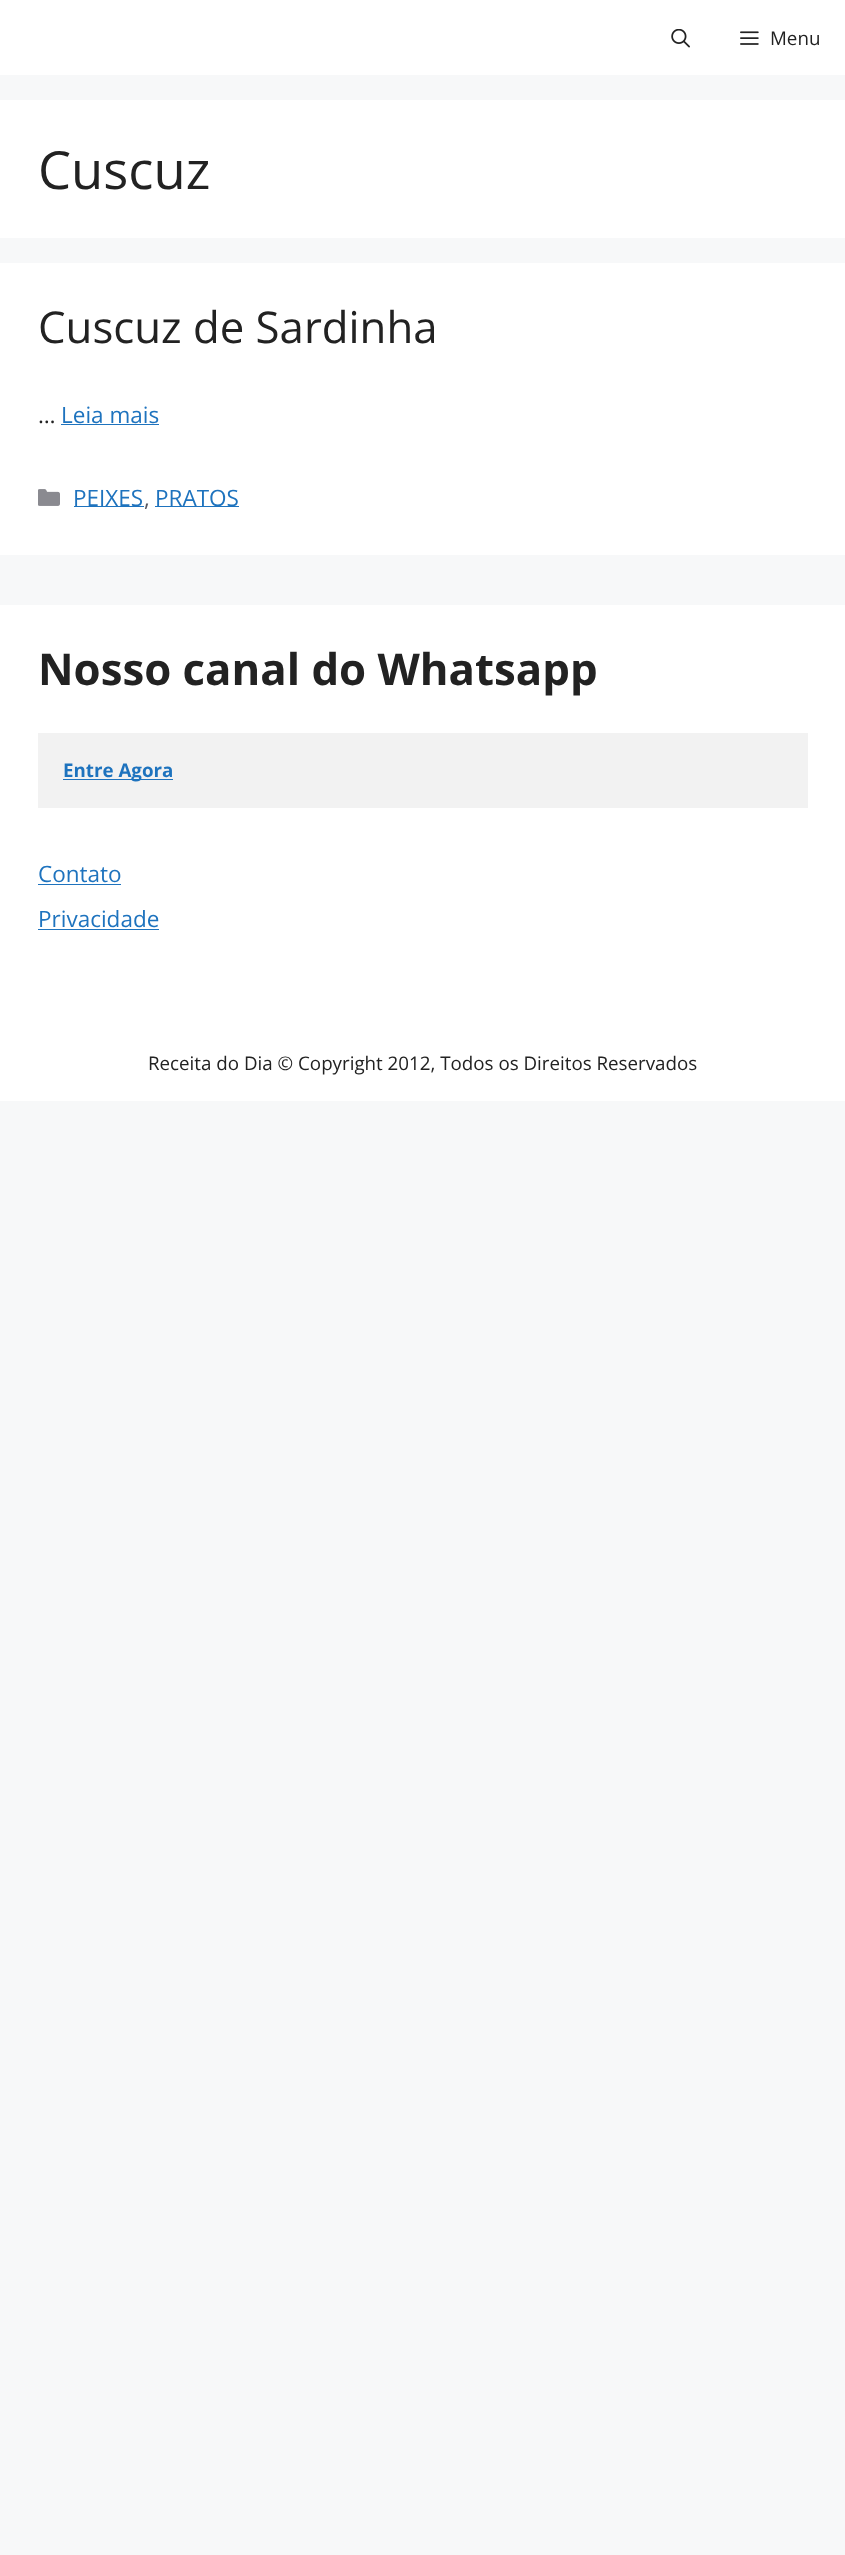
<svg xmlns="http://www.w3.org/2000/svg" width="845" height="2555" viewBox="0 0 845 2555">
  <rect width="100%" height="100%" fill="#f7f8f9"/>
  <rect x="0" y="0" width="845" height="75" fill="#ffffff"/>
  <image x="671" y="29" width="19" height="19" href="img1.png"/>
  <image x="740" y="31" width="19" height="14" href="img2.png"/>
  <text x="770" y="45" font-family="Open Sans" font-size="18.75" fill="#222222">Menu</text>
  <rect x="0" y="100" width="845" height="138" fill="#ffffff"/>
  <text x="38" y="189" font-family="Open Sans" font-size="52.5" fill="#222222">Cuscuz</text>
  <rect x="0" y="263" width="845" height="292" fill="#ffffff"/>
  <text x="38" y="343" font-family="Open Sans" font-size="43.75" fill="#222222">Cuscuz de Sardinha</text>
  <text x="38" y="423" font-family="Open Sans" font-size="22.5" fill="#222222">…</text>
  <text x="61" y="423" font-family="Open Sans" font-size="22.5" fill="#1e73be">Leia mais</text>
  <rect x="61" y="424" width="98" height="1" fill="#1e73be"/>
  <image x="38" y="489" width="22" height="17" href="img3.png"/>
  <rect x="74" y="506" width="70" height="1" fill="#1e73be"/>
  <text x="73" y="506" font-family="Open Sans" font-size="22.5" fill="#1e73be">PEIXES</text>
  <text x="144" y="506" font-family="Open Sans" font-size="22.5" fill="#575760">,</text>
  <rect x="155" y="506" width="84" height="1" fill="#1e73be"/>
  <text x="155" y="506" font-family="Open Sans" font-size="22.5" fill="#1e73be">PRATOS</text>
  <rect x="0" y="605" width="845" height="496" fill="#ffffff"/>
  <text x="38" y="685" font-family="Open Sans" font-size="43.75" font-weight="bold" fill="#222222">Nosso canal do Whatsapp</text>
  <rect x="38" y="733" width="770" height="75" fill="#f2f2f2"/>
  <rect x="63" y="779" width="110" height="1" fill="#1e73be"/>
  <text x="63" y="777" font-family="Open Sans" font-size="18.75" font-weight="bold" fill="#1e73be">Entre Agora</text>
  <text x="38" y="882" font-family="Open Sans" font-size="22.5" fill="#1e73be">Contato</text>
  <rect x="38" y="884" width="83" height="1" fill="#1e73be"/>
  <text x="38" y="927" font-family="Open Sans" font-size="22.5" fill="#1e73be">Privacidade</text>
  <rect x="38" y="929" width="121" height="1" fill="#1e73be"/>
  <text x="148" y="1070" font-family="Open Sans" font-size="18.75" fill="#222222">Receita do Dia © Copyright 2012, Todos os Direitos Reservados</text>
</svg>
